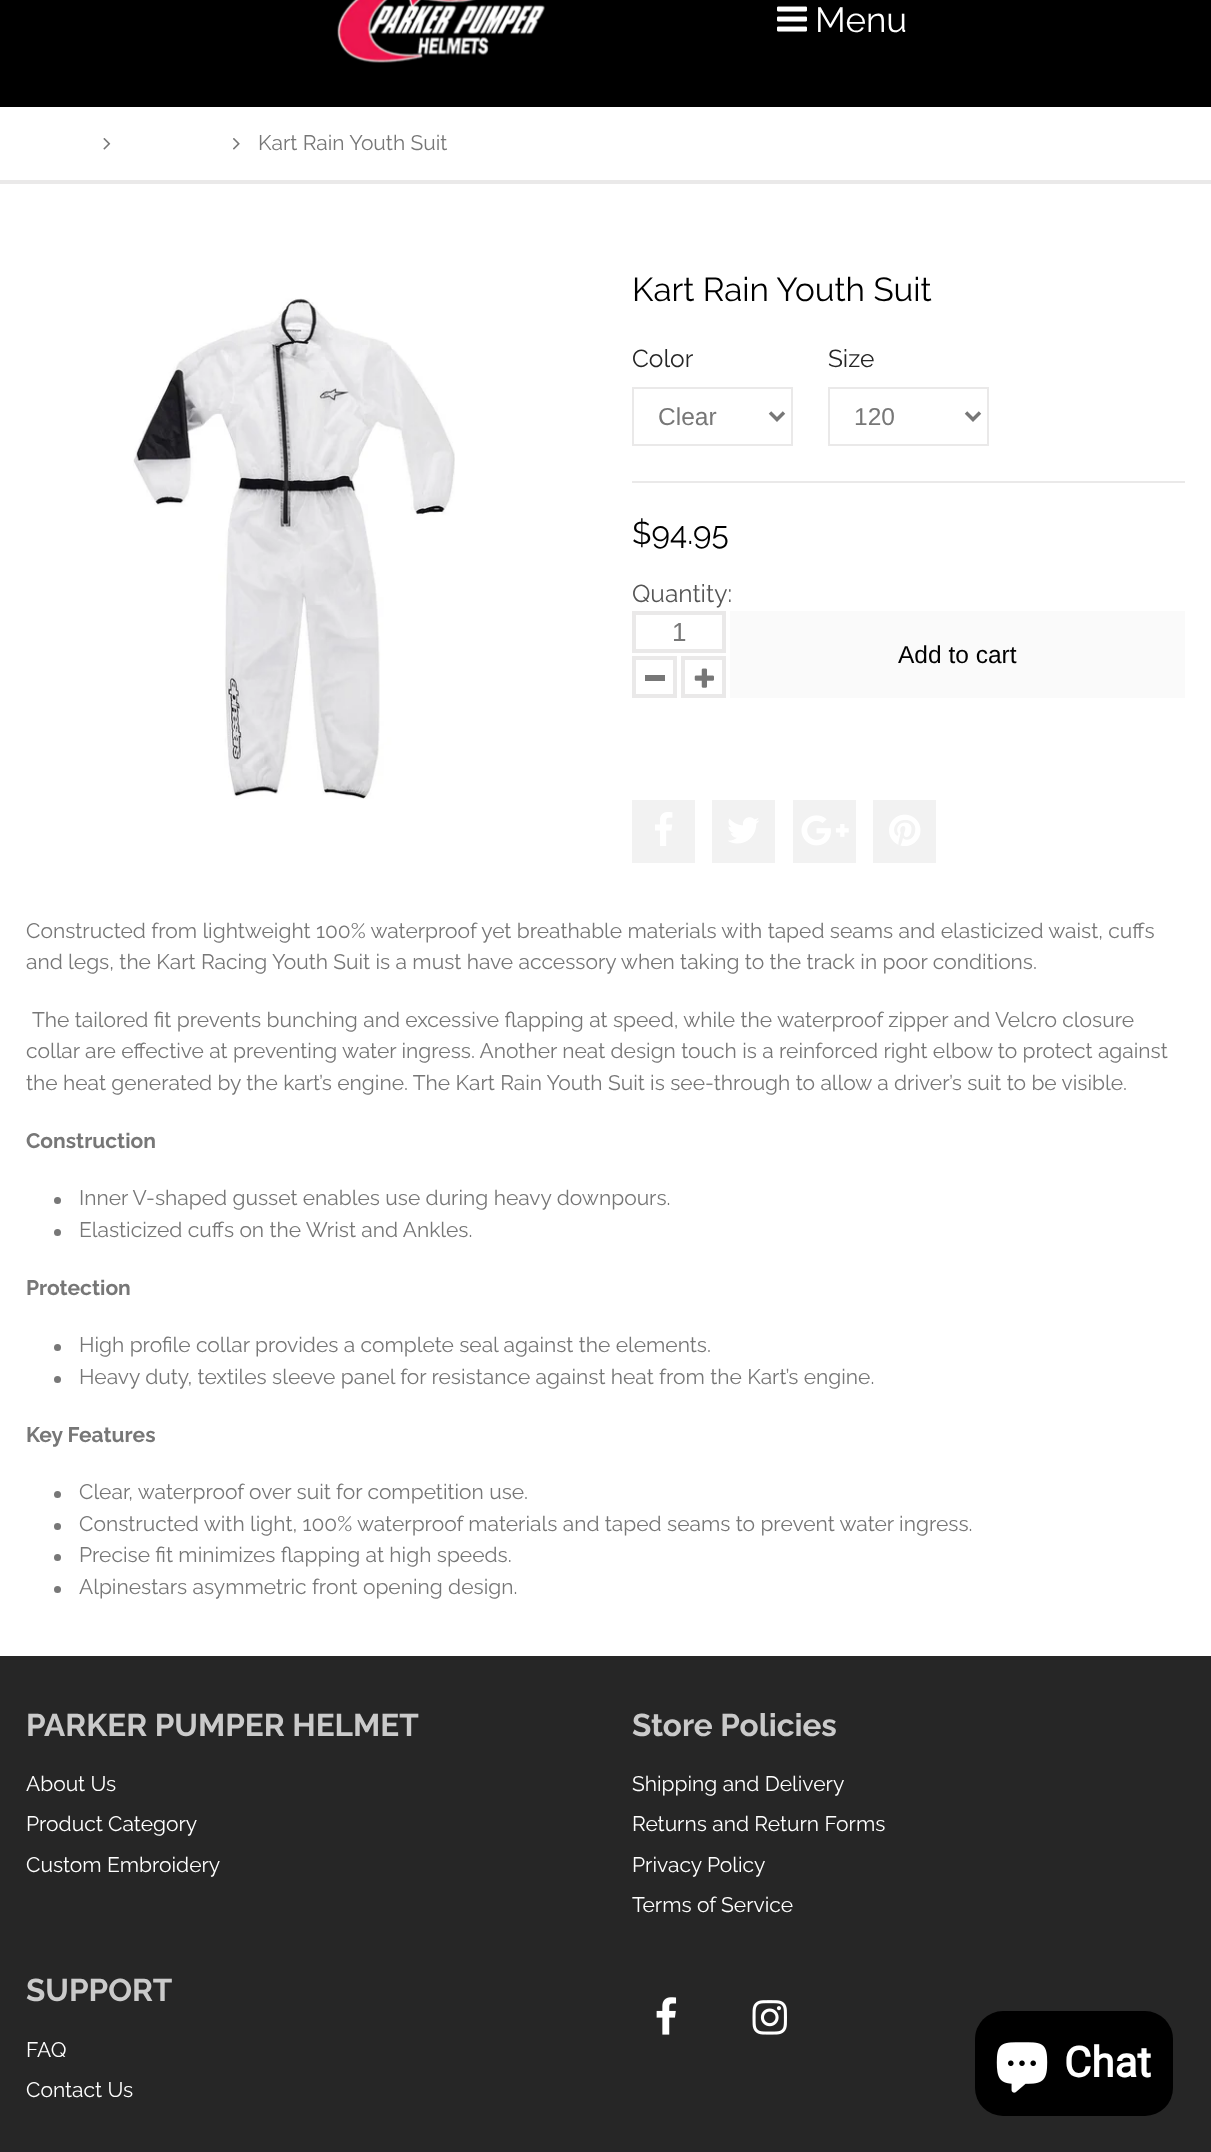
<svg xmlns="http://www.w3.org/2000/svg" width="1211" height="2152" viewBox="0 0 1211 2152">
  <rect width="100%" height="100%" fill="#ffffff"/>
  <rect x="0" y="0" width="1211" height="107" fill="#000000"/>
  <image x="337" y="0" width="208" height="63" href="img1.png"/>
  <image x="777" y="6" width="30" height="26" href="img2.png"/>
  <text x="815" y="32" font-family="Raleway" font-size="35" fill="#ffffff">Menu</text>
  <rect x="0" y="180" width="1211" height="4" fill="#eae9e9"/>
  <image x="103" y="138" width="8" height="12" href="img3.png"/>
  <image x="233" y="138" width="7" height="12" href="img4.png"/>
  <text x="258" y="150" font-family="Raleway" font-size="21" fill="#777777">Kart Rain Youth Suit</text>
  <image x="133" y="298" width="322" height="501" href="img5.png"/>
  <text x="632" y="301" font-family="Raleway" font-size="33.25" fill="#000000">Kart Rain Youth Suit</text>
  <text x="632" y="367" font-family="Raleway" font-size="24.5" fill="#262626">Color</text>
  <rect x="633" y="388" width="159" height="57" fill="none" stroke="#eae9e9" stroke-width="2"/>
  <path d="M770 412.5L777 419.5L784 412.5" fill="none" stroke="#777777" stroke-width="3.5"/>
  <text x="658" y="425" font-family="Liberation Sans" font-size="24.5" fill="#777777">Clear</text>
  <text x="828" y="367" font-family="Raleway" font-size="24.5" fill="#262626">Size</text>
  <rect x="829" y="388" width="159" height="57" fill="none" stroke="#eae9e9" stroke-width="2"/>
  <path d="M966 412.5L973 419.5L980 412.5" fill="none" stroke="#777777" stroke-width="3.5"/>
  <text x="854" y="425" font-family="Liberation Sans" font-size="24.5" fill="#777777">120</text>
  <rect x="632" y="481" width="553" height="2" fill="#eae9e9"/>
  <text x="632" y="544" font-family="Raleway" font-size="31.5" fill="#000000">$94.95</text>
  <text x="632" y="602" font-family="Raleway" font-size="24.5" fill="#555555">Quantity:</text>
  <rect x="634" y="613" width="90" height="38" fill="none" stroke="#eae9e9" stroke-width="4"/>
  <text x="672" y="641" font-family="Liberation Sans" font-size="26" fill="#777777">1</text>
  <rect x="634" y="658" width="41" height="38" fill="none" stroke="#eae9e9" stroke-width="4"/>
  <rect x="645" y="675" width="20" height="6" fill="#777777"/>
  <rect x="683" y="658" width="41" height="38" fill="none" stroke="#eae9e9" stroke-width="4"/>
  <image x="694" y="668" width="20" height="20" href="img6.png"/>
  <rect x="730" y="611" width="455" height="87" fill="#fafafa"/>
  <text x="898" y="663" font-family="Liberation Sans" font-size="24.5" fill="#000000">Add to cart</text>
  <rect x="632" y="800" width="63" height="63" fill="#f2f2f2"/>
  <image x="655" y="812" width="18" height="34" href="img7.png"/>
  <rect x="712" y="800" width="63" height="63" fill="#f2f2f2"/>
  <image x="728" y="817" width="31" height="27" href="img8.png"/>
  <rect x="793" y="800" width="63" height="63" fill="#f2f2f2"/>
  <image x="801" y="815" width="48" height="31" href="img9.png"/>
  <rect x="873" y="800" width="63" height="63" fill="#f2f2f2"/>
  <image x="889" y="814" width="32" height="32" href="img10.png"/>
  <text x="26" y="938" font-family="Raleway" font-size="21" fill="#777777">Constructed from lightweight 100% waterproof yet breathable materials with taped seams and elasticized waist, cuffs</text>
  <text x="26" y="969" font-family="Raleway" font-size="21" fill="#777777">and legs, the Kart Racing Youth Suit is a must have accessory when taking to the track in poor conditions.</text>
  <text x="32" y="1027" font-family="Raleway" font-size="21" fill="#777777">The tailored fit prevents bunching and excessive flapping at speed, while the waterproof zipper and Velcro closure</text>
  <text x="26" y="1058" font-family="Raleway" font-size="21" fill="#777777">collar are effective at preventing water ingress. Another neat design touch is a reinforced right elbow to protect against</text>
  <text x="26" y="1090" font-family="Raleway" font-size="21" fill="#777777">the heat generated by the kart’s engine. The Kart Rain Youth Suit is see-through to allow a driver’s suit to be visible.</text>
  <text x="26" y="1148" font-family="Raleway" font-size="21" font-weight="bold" fill="#777777">Construction</text>
  <circle cx="57.5" cy="1200.5" r="3.5" fill="#777777"/>
  <text x="79" y="1205" font-family="Raleway" font-size="21" fill="#777777">Inner V-shaped gusset enables use during heavy downpours.</text>
  <circle cx="57.5" cy="1232.5" r="3.5" fill="#777777"/>
  <text x="79" y="1237" font-family="Raleway" font-size="21" fill="#777777">Elasticized cuffs on the Wrist and Ankles.</text>
  <text x="26" y="1295" font-family="Raleway" font-size="21" font-weight="bold" fill="#777777">Protection</text>
  <circle cx="57.5" cy="1347.5" r="3.5" fill="#777777"/>
  <text x="79" y="1352" font-family="Raleway" font-size="21" fill="#777777">High profile collar provides a complete seal against the elements.</text>
  <circle cx="57.5" cy="1379.5" r="3.5" fill="#777777"/>
  <text x="79" y="1384" font-family="Raleway" font-size="21" fill="#777777">Heavy duty, textiles sleeve panel for resistance against heat from the Kart’s engine.</text>
  <text x="26" y="1442" font-family="Raleway" font-size="21" font-weight="bold" fill="#777777">Key Features</text>
  <circle cx="57.5" cy="1494.5" r="3.5" fill="#777777"/>
  <text x="79" y="1499" font-family="Raleway" font-size="21" fill="#777777">Clear, waterproof over suit for competition use.</text>
  <circle cx="57.5" cy="1526.5" r="3.5" fill="#777777"/>
  <text x="79" y="1531" font-family="Raleway" font-size="21" fill="#777777">Constructed with light, 100% waterproof materials and taped seams to prevent water ingress.</text>
  <circle cx="57.5" cy="1557.5" r="3.5" fill="#777777"/>
  <text x="79" y="1562" font-family="Raleway" font-size="21" fill="#777777">Precise fit minimizes flapping at high speeds.</text>
  <circle cx="57.5" cy="1589.5" r="3.5" fill="#777777"/>
  <text x="79" y="1594" font-family="Raleway" font-size="21" fill="#777777">Alpinestars asymmetric front opening design.</text>
  <rect x="0" y="1656" width="1211" height="496" fill="#262626"/>
  <text x="26" y="1736" font-family="Raleway" font-size="31.5" font-weight="bold" fill="#cacaca">PARKER PUMPER HELMET</text>
  <text x="26" y="1791" font-family="Raleway" font-size="21" fill="#ffffff">About Us</text>
  <text x="26" y="1831" font-family="Raleway" font-size="21" fill="#ffffff">Product Category</text>
  <text x="26" y="1872" font-family="Raleway" font-size="21" fill="#ffffff">Custom Embroidery</text>
  <text x="632" y="1736" font-family="Raleway" font-size="31.5" font-weight="bold" fill="#cacaca">Store Policies</text>
  <text x="632" y="1791" font-family="Raleway" font-size="21" fill="#ffffff">Shipping and Delivery</text>
  <text x="632" y="1831" font-family="Raleway" font-size="21" fill="#ffffff">Returns and Return Forms</text>
  <text x="632" y="1872" font-family="Raleway" font-size="21" fill="#ffffff">Privacy Policy</text>
  <text x="632" y="1912" font-family="Raleway" font-size="21" fill="#ffffff">Terms of Service</text>
  <text x="26" y="2001" font-family="Raleway" font-size="31.5" font-weight="bold" fill="#cacaca">SUPPORT</text>
  <text x="26" y="2057" font-family="Raleway" font-size="21" fill="#ffffff">FAQ</text>
  <text x="26" y="2097" font-family="Raleway" font-size="21" fill="#ffffff">Contact Us</text>
  <image x="656" y="1997" width="21" height="38" href="img11.png"/>
  <image x="752" y="2000" width="35" height="35" href="img12.png"/>
  <rect x="975" y="2011" width="198" height="105" rx="28" fill="#000000"/>
  <image x="996" y="2042" width="52" height="51" href="img13.png"/>
  <text x="1064" y="2077" font-family="Roboto" font-size="42" font-weight="bold" fill="#ffffff">Chat</text>
</svg>
